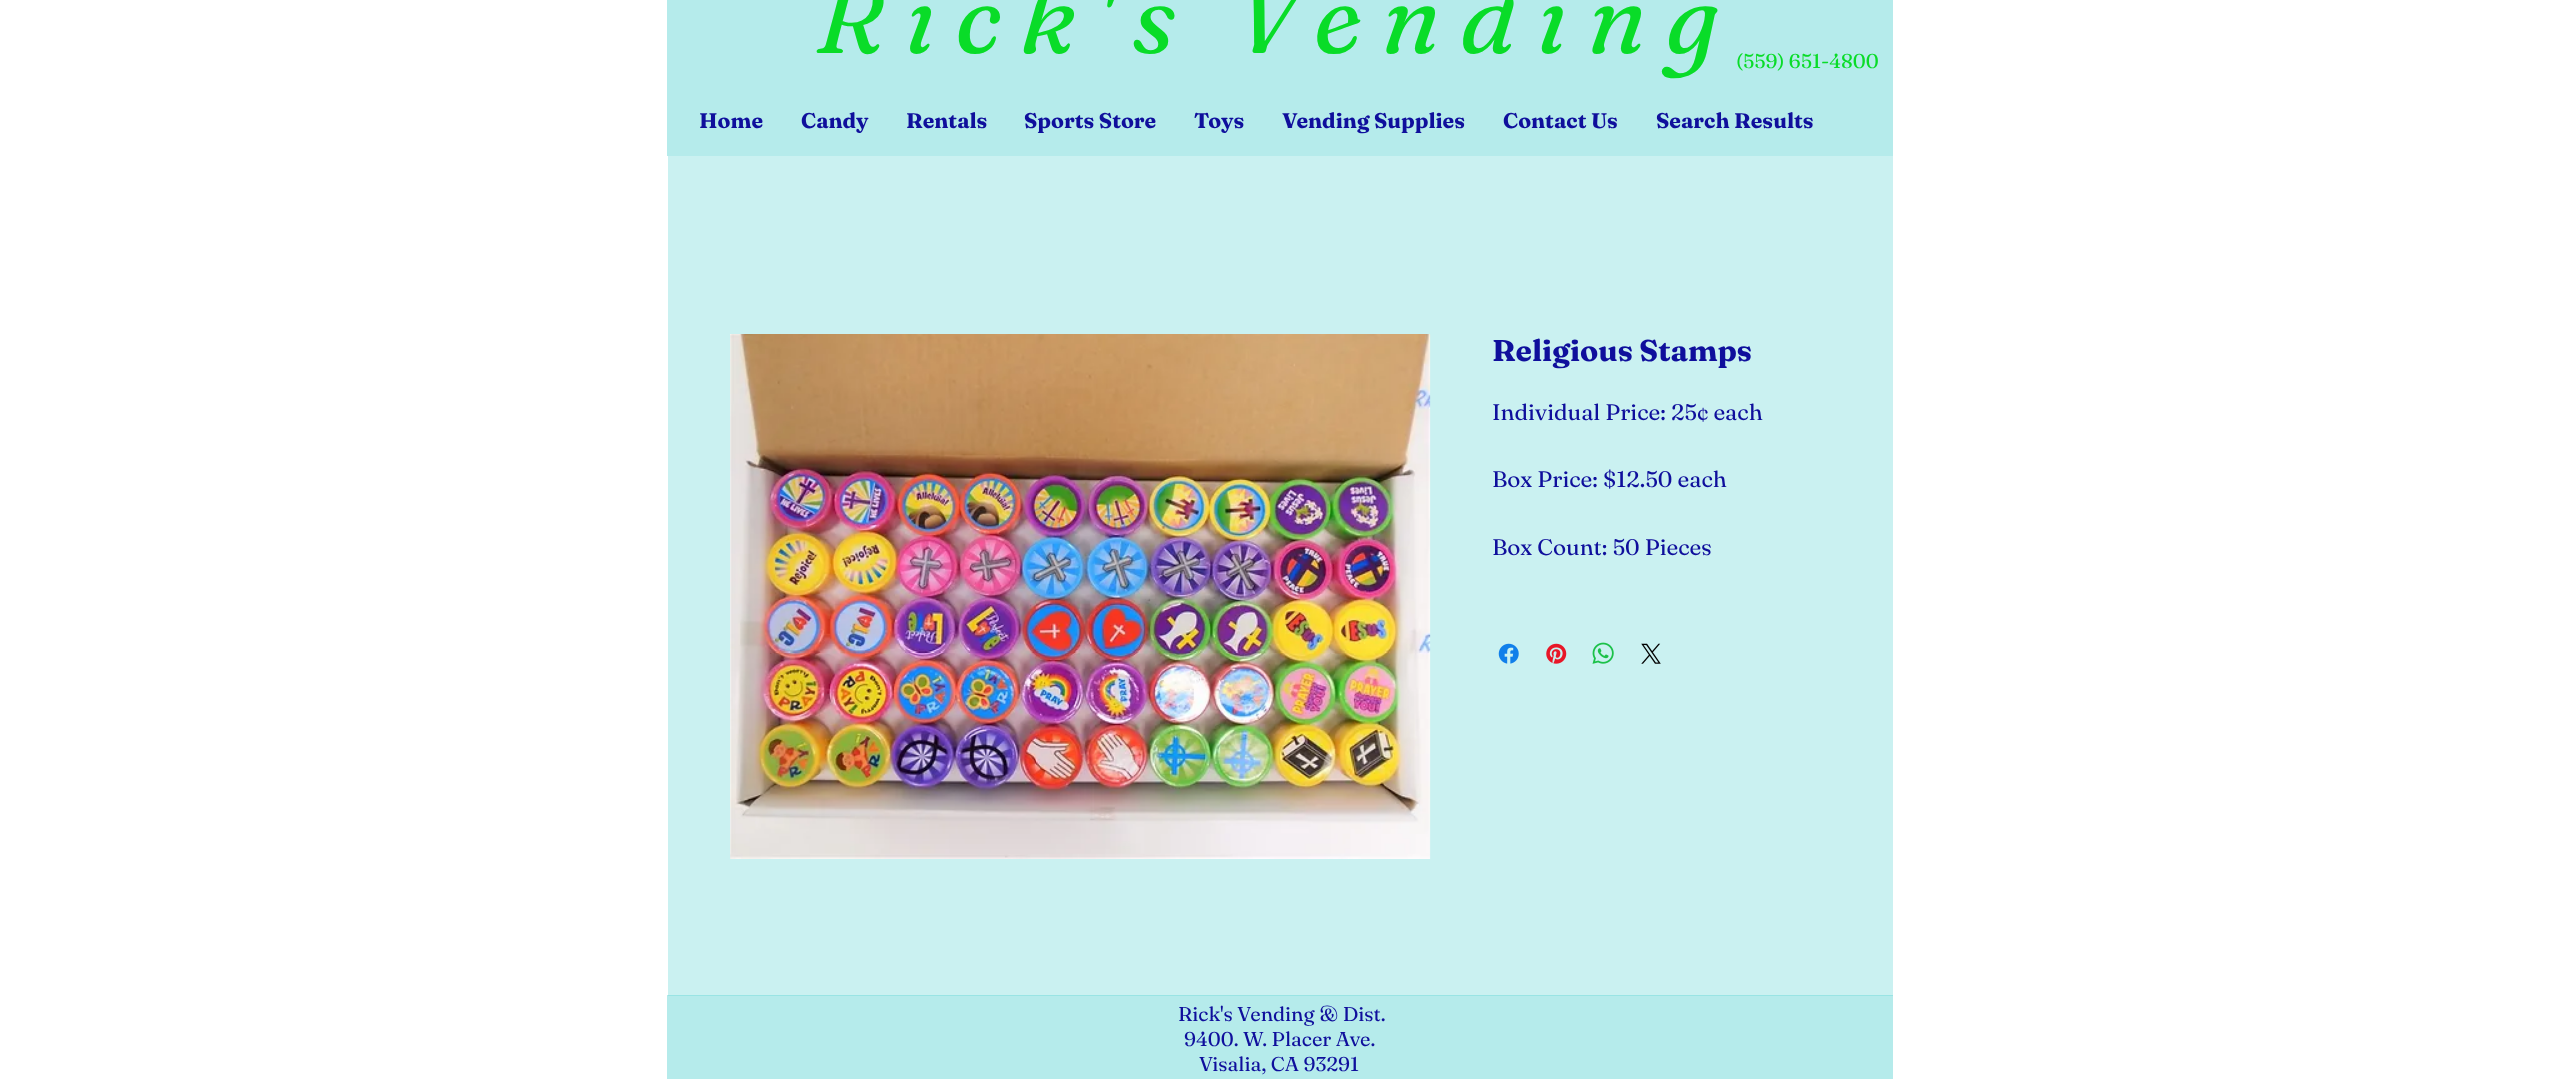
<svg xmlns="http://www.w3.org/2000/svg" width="2558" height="1079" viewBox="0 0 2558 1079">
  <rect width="100%" height="100%" fill="#ffffff"/>
  <rect x="667" y="995" width="1226" height="84" fill="#b5ebeb"/>
  <rect x="667" y="0" width="1226" height="156" fill="#b5ebeb"/>
  <text x="816" y="53" font-family="Fraunces" font-size="100" font-style="italic" letter-spacing="20" fill="#09dc28">Rick's Vending</text>
  <text x="1736" y="68" font-family="Fraunces" font-size="20" fill="#09dc28">(559) 651-4800</text>
  <text x="699" y="128" font-family="Fraunces" font-size="21.25" font-weight="bold" fill="#0f0f9c">Home</text>
  <text x="801" y="128" font-family="Fraunces" font-size="21.25" font-weight="bold" fill="#0f0f9c">Candy</text>
  <text x="906" y="128" font-family="Fraunces" font-size="21.25" font-weight="bold" fill="#0f0f9c">Rentals</text>
  <text x="1024" y="128" font-family="Fraunces" font-size="21.25" font-weight="bold" fill="#0f0f9c">Sports Store</text>
  <text x="1194" y="128" font-family="Fraunces" font-size="21.25" font-weight="bold" fill="#0f0f9c">Toys</text>
  <text x="1282" y="128" font-family="Fraunces" font-size="21.25" font-weight="bold" fill="#0f0f9c">Vending Supplies</text>
  <text x="1503" y="128" font-family="Fraunces" font-size="21.25" font-weight="bold" fill="#0f0f9c">Contact Us</text>
  <text x="1656" y="128" font-family="Fraunces" font-size="21.25" font-weight="bold" fill="#0f0f9c">Search Results</text>
  <rect x="668" y="156" width="1225" height="839" fill="#caf1f1"/>
  <rect x="668" y="995" width="1225" height="1" fill="#99e4e4"/>
  <image x="730" y="334" width="701" height="525" href="img1.png"/>
  <text x="1492" y="361" font-family="Fraunces" font-size="30" font-weight="bold" fill="#0f0f9c">Religious Stamps</text>
  <text x="1492" y="420" font-family="Fraunces" font-size="22.5" fill="#0f0f9c">Individual Price: 25¢ each</text>
  <text x="1492" y="487" font-family="Fraunces" font-size="22.5" fill="#0f0f9c">Box Price: $12.50 each</text>
  <text x="1492" y="555" font-family="Fraunces" font-size="22.5" fill="#0f0f9c">Box Count: 50 Pieces</text>
  <image x="1498" y="643" width="21" height="21" href="img2.png"/>
  <image x="1546" y="643" width="21" height="21" href="img3.png"/>
  <image x="1592" y="642" width="22" height="22" href="img4.png"/>
  <image x="1641" y="643" width="20" height="21" href="img5.png"/>
  <text x="1178" y="1021" font-family="Fraunces" font-size="20" fill="#0f0f9c">Rick's Vending &amp; Dist.</text>
  <text x="1184" y="1046" font-family="Fraunces" font-size="20" fill="#0f0f9c">9400. W. Placer Ave.</text>
  <text x="1199" y="1071" font-family="Fraunces" font-size="20" fill="#0f0f9c">Visalia, CA 93291</text>
</svg>
